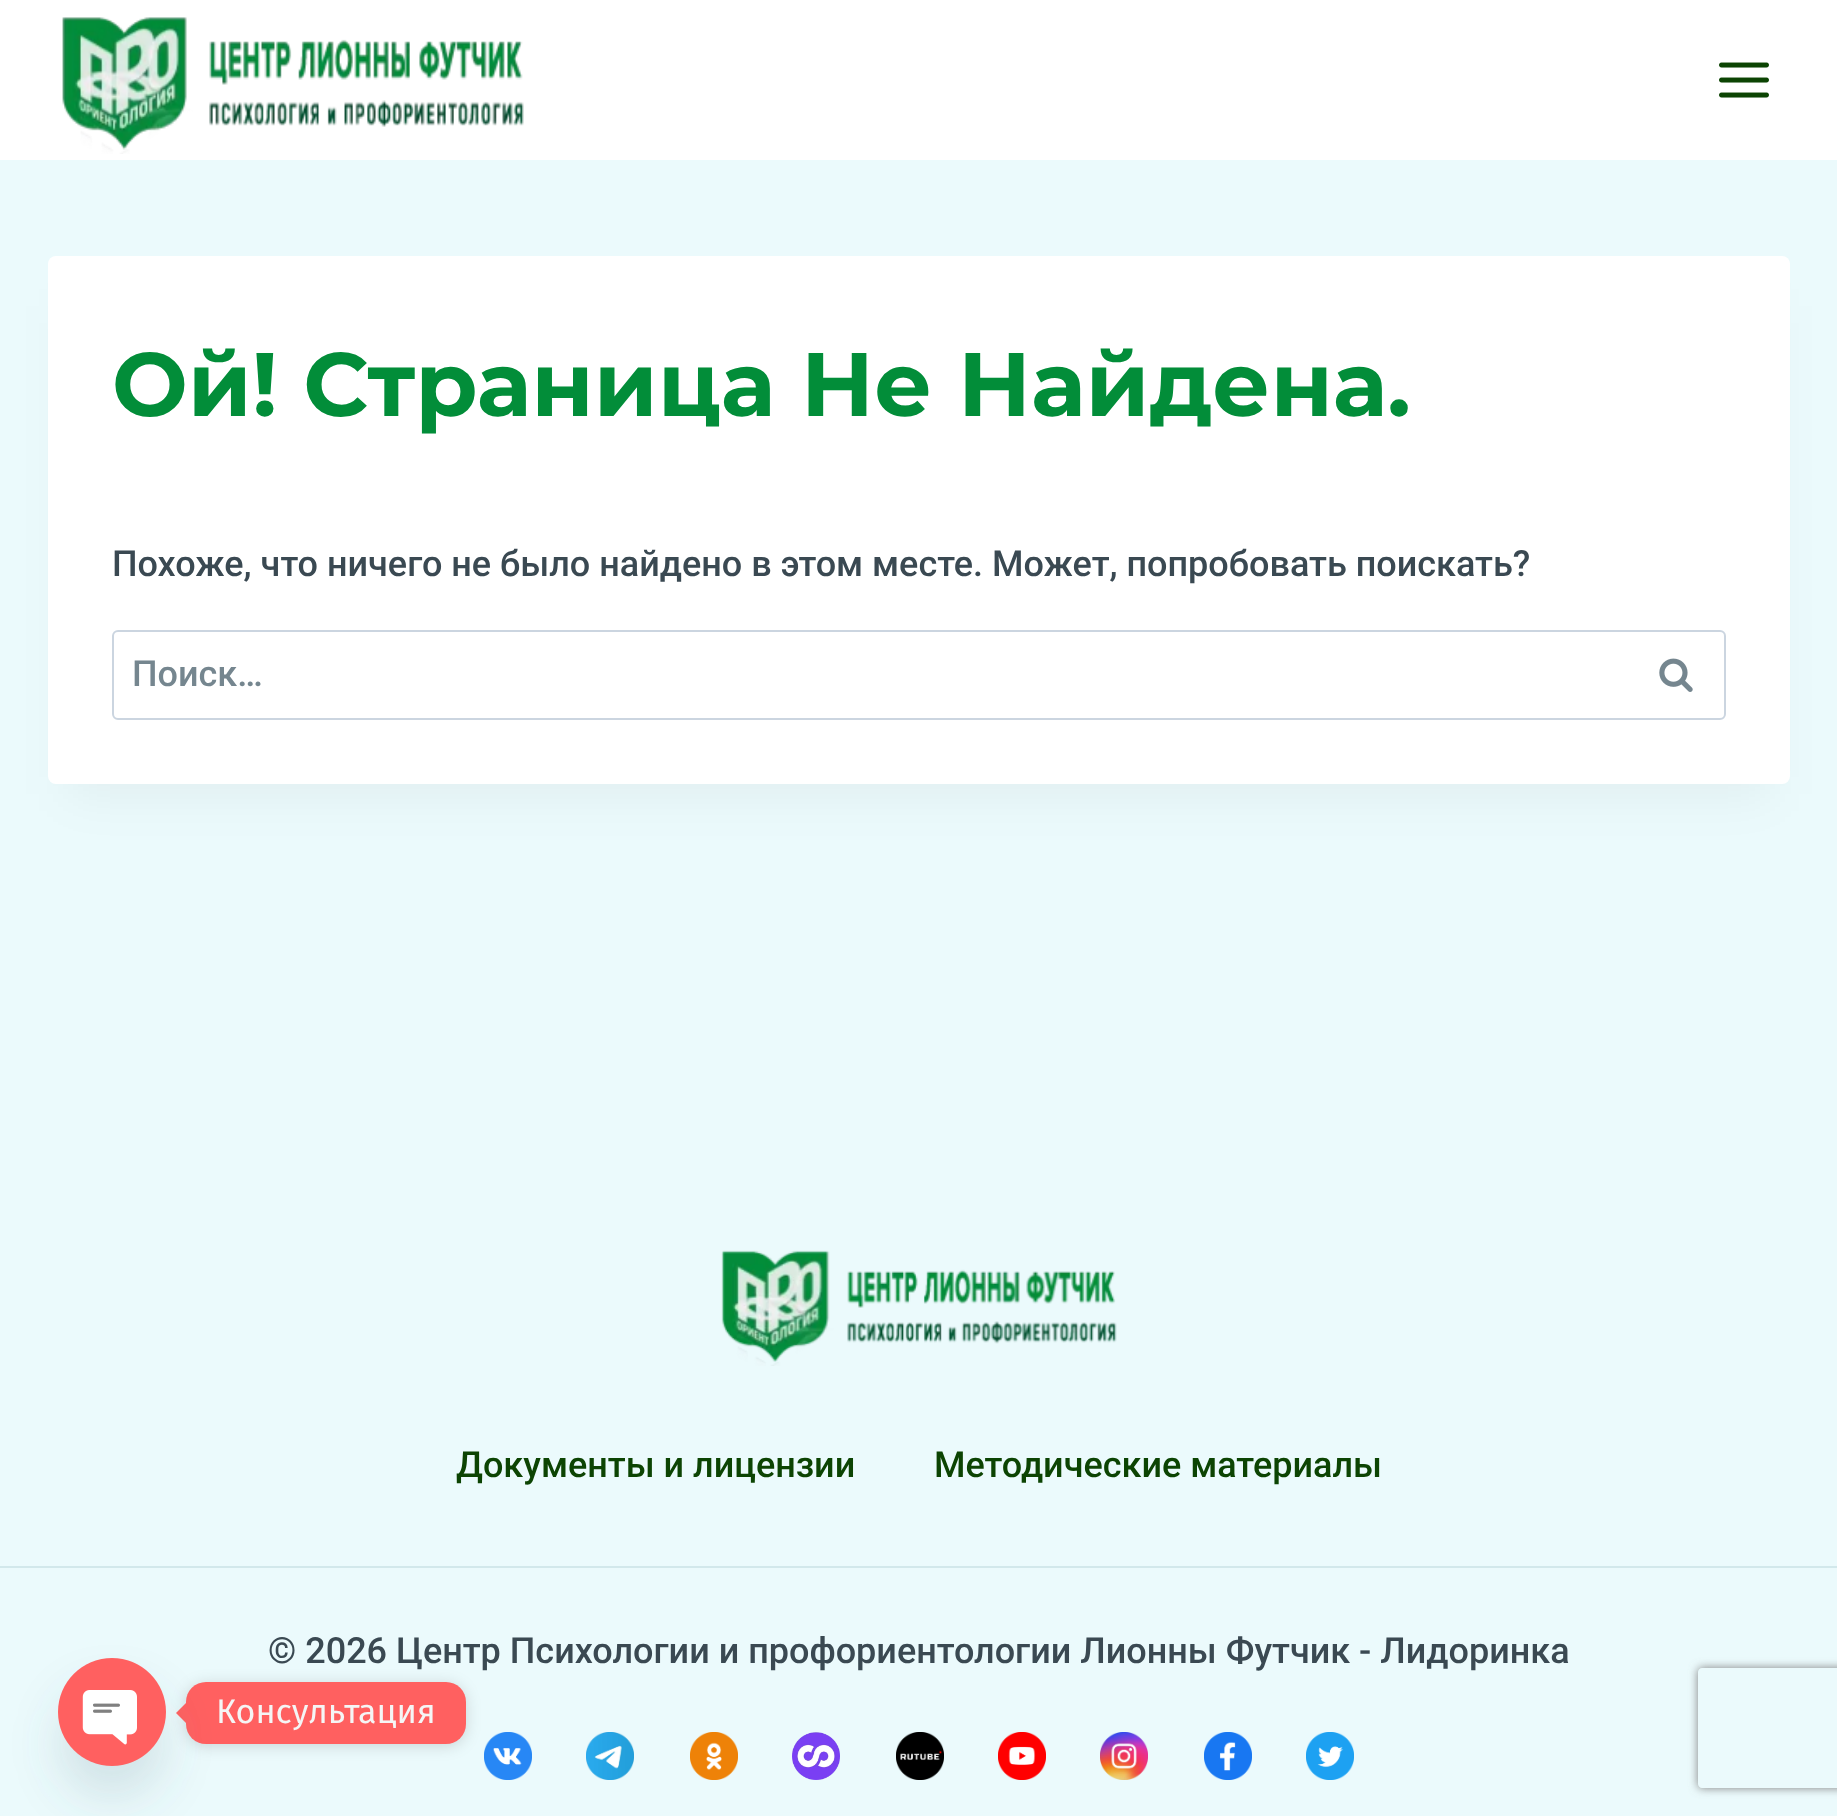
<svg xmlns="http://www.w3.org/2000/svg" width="1837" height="1816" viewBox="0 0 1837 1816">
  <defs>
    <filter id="blur1" x="-50%" y="-200%" width="200%" height="500%"><feGaussianBlur stdDeviation="25"/></filter>
    <filter id="blur2" x="-50%" y="-200%" width="200%" height="500%"><feGaussianBlur stdDeviation="7.5"/></filter>
    <filter id="blur3" x="-50%" y="-200%" width="200%" height="500%"><feGaussianBlur stdDeviation="24"/></filter>
    <clipPath id="clip1"><path d="M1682 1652H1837V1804H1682ZM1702 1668H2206C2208 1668 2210 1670 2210 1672V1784C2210 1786 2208 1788 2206 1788H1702C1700 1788 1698 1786 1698 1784V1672C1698 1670 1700 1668 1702 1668Z" clip-rule="evenodd"/></clipPath>
    <filter id="blur4" x="-50%" y="-200%" width="200%" height="500%"><feGaussianBlur stdDeviation="5"/></filter>
  </defs>
  <rect width="100%" height="100%" fill="#ebfafc"/>
  <rect x="0" y="0" width="1837" height="160" fill="#ffffff"/>
  <image x="62" y="17" width="462" height="137" href="img1.png"/>
  <image x="1719" y="62" width="50" height="36" href="img2.png"/>
  <rect x="68" y="306" width="1702" height="488" fill="#000000" fill-opacity="0.05" filter="url(#blur1)"/>
  <rect x="48" y="256" width="1742" height="528" rx="8" fill="#ffffff"/>
  <text x="112" y="416" font-family="Montserrat" font-size="90" font-weight="bold" fill="#028d39">Ой! Страница Не Найдена.</text>
  <text x="112" y="576" font-family="Roboto" font-size="36" font-weight="500" fill="#3a4952">Похоже, что ничего не было найдено в этом месте. Может, попробовать поискать?</text>
  <rect x="113" y="631" width="1612" height="88" rx="5" fill="none" stroke="#cbd5e0" stroke-width="2"/>
  <text x="132" y="686" font-family="Roboto" font-size="36" font-weight="500" fill="#75868f">Поиск…</text>
  <image x="1659" y="658" width="34" height="34" href="img3.png"/>
  <image x="721" y="1250" width="396" height="116" href="img4.png"/>
  <text x="456" y="1477" font-family="Roboto" font-size="36" font-weight="500" fill="#0c4403">Документы и лицензии</text>
  <text x="934" y="1477" font-family="Roboto" font-size="36" font-weight="500" fill="#0c4403">Методические материалы</text>
  <rect x="0" y="1566" width="1837" height="2" fill="#d2e8eb"/>
  <text x="268" y="1663" font-family="Roboto" font-size="36" font-weight="500" fill="#3a4952">© 2026 Центр Психологии и профориентологии Лионны Футчик - Лидоринка</text>
  <image x="484" y="1732" width="48" height="48" href="img5.png"/>
  <image x="586" y="1732" width="48" height="48" href="img6.png"/>
  <image x="690" y="1732" width="48" height="48" href="img7.png"/>
  <image x="792" y="1732" width="48" height="48" href="img8.png"/>
  <image x="896" y="1732" width="48" height="48" href="img9.png"/>
  <image x="998" y="1732" width="48" height="48" href="img10.png"/>
  <image x="1100" y="1732" width="48" height="48" href="img11.png"/>
  <image x="1204" y="1732" width="48" height="48" href="img12.png"/>
  <image x="1306" y="1732" width="48" height="48" href="img13.png"/>
  <rect x="186" y="1684" width="280" height="62" rx="20" fill="#000000" fill-opacity="0.15" filter="url(#blur2)"/>
  <rect x="186" y="1682" width="280" height="62" rx="20" fill="#ff6060"/>
  <path d="M186 1703V1723L176 1713Z" fill="#ff6060"/>
  <rect x="58" y="1690" width="108" height="108" rx="54" fill="#49687e" fill-opacity="0.16" filter="url(#blur3)"/>
  <image x="58" y="1658" width="108" height="108" href="img14.png"/>
  <text x="216" y="1723" font-family="Fira Sans" font-size="34" fill="#f5f5f5">Консультация</text>
  <g clip-path="url(#clip1)">
    <rect x="1698" y="1668" width="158" height="120" rx="4" fill="#808080" filter="url(#blur4)"/>
  </g>
</svg>
